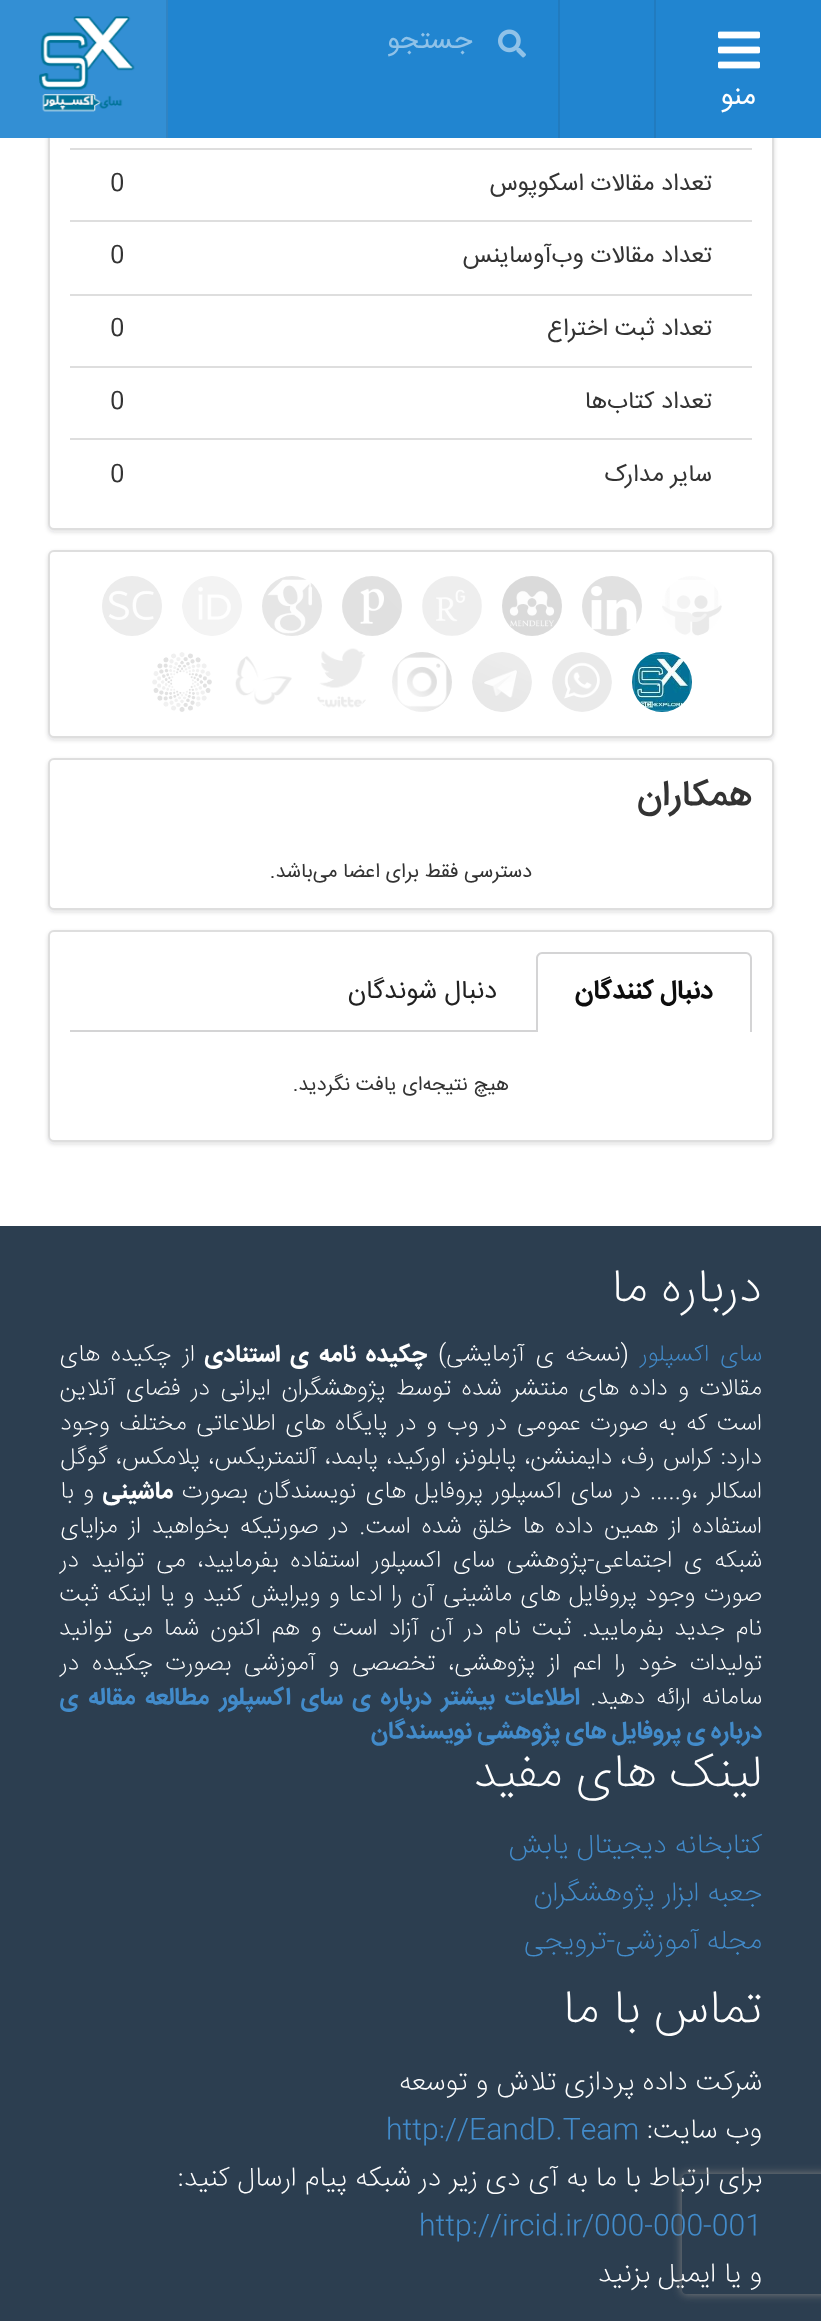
<svg xmlns="http://www.w3.org/2000/svg" width="821" height="2321" viewBox="0 0 821 2321">
  <defs>
    <filter id="blur1" x="-50%" y="-200%" width="200%" height="500%"><feGaussianBlur stdDeviation="2"/></filter>
    <clipPath id="clip1"><path d="M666 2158H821V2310H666ZM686 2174H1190C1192 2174 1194 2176 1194 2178V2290C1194 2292 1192 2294 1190 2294H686C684 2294 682 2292 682 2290V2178C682 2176 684 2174 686 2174Z" clip-rule="evenodd"/></clipPath>
    <filter id="blur2" x="-50%" y="-200%" width="200%" height="500%"><feGaussianBlur stdDeviation="5"/></filter>
  </defs>
  <rect width="100%" height="100%" fill="#ffffff"/>
  <rect x="48" y="-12" width="726" height="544" rx="6" fill="#222426" fill-opacity="0.15" filter="url(#blur1)"/>
  <rect x="49" y="-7" width="724" height="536" rx="5" fill="#ffffff" stroke="#dedede" stroke-width="2"/>
  <rect x="168" y="0" width="653" height="138" fill="#2185d0"/>
  <rect x="558" y="0" width="2" height="138" fill="#217bbf"/>
  <image x="498" y="29" width="28" height="29" href="img1.png"/>
  <text x="472" y="48" font-family="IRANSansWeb" font-size="28" direction="rtl" fill="#90c2e8">جستجو</text>
  <rect x="0" y="0" width="166" height="138" fill="#338fd4"/>
  <rect x="166" y="0" width="2" height="138" fill="#3184c3"/>
  <image x="39" y="16" width="96" height="96" href="img2.png"/>
  <image x="718" y="31" width="42" height="38" href="img3.png"/>
  <rect x="654" y="0" width="2" height="138" fill="#217bbf"/>
  <text x="756" y="104" font-family="IRANSansWeb" font-size="28" direction="rtl" fill="#ffffff">منو</text>
  <rect x="70" y="148" width="682" height="2" fill="#dedede"/>
  <text x="712" y="190" font-family="IRANSansWeb" font-size="24" direction="rtl" fill="#333333">تعداد مقالات اسکوپوس</text>
  <text x="110" y="190" font-family="IRANSansWeb" font-size="24" fill="#333333">0</text>
  <rect x="70" y="220" width="682" height="2" fill="#dedede"/>
  <text x="712" y="262" font-family="IRANSansWeb" font-size="24" direction="rtl" fill="#333333">تعداد مقالات وب‌آوساینس</text>
  <text x="110" y="262" font-family="IRANSansWeb" font-size="24" fill="#333333">0</text>
  <rect x="70" y="294" width="682" height="2" fill="#dedede"/>
  <text x="712" y="335" font-family="IRANSansWeb" font-size="24" direction="rtl" fill="#333333">تعداد ثبت اختراع</text>
  <text x="110" y="335" font-family="IRANSansWeb" font-size="24" fill="#333333">0</text>
  <rect x="70" y="366" width="682" height="2" fill="#dedede"/>
  <text x="712" y="408" font-family="IRANSansWeb" font-size="24" direction="rtl" fill="#333333">تعداد کتاب‌ها</text>
  <text x="110" y="408" font-family="IRANSansWeb" font-size="24" fill="#333333">0</text>
  <rect x="70" y="438" width="682" height="2" fill="#dedede"/>
  <text x="712" y="481" font-family="IRANSansWeb" font-size="24" direction="rtl" fill="#333333">سایر مدارک</text>
  <text x="110" y="481" font-family="IRANSansWeb" font-size="24" fill="#333333">0</text>
  <rect x="48" y="552" width="726" height="188" rx="6" fill="#222426" fill-opacity="0.15" filter="url(#blur1)"/>
  <rect x="49" y="551" width="724" height="186" rx="5" fill="#ffffff" stroke="#dedede" stroke-width="2"/>
  <image x="662" y="576" width="60" height="60" href="img4.png"/>
  <image x="582" y="576" width="60" height="60" href="img5.png"/>
  <image x="502" y="576" width="60" height="60" href="img6.png"/>
  <image x="422" y="576" width="60" height="60" href="img7.png"/>
  <image x="342" y="576" width="60" height="60" href="img8.png"/>
  <image x="262" y="576" width="60" height="60" href="img9.png"/>
  <image x="182" y="576" width="60" height="60" href="img10.png"/>
  <image x="102" y="576" width="60" height="60" href="img11.png"/>
  <image x="632" y="652" width="60" height="60" href="img12.png"/>
  <image x="552" y="652" width="60" height="60" href="img13.png"/>
  <image x="472" y="652" width="60" height="60" href="img14.png"/>
  <image x="392" y="652" width="60" height="60" href="img15.png"/>
  <image x="317" y="648" width="49" height="60" href="img16.png"/>
  <image x="235" y="656" width="57" height="49" href="img17.png"/>
  <image x="152" y="652" width="60" height="60" href="img18.png"/>
  <rect x="48" y="760" width="726" height="152" rx="6" fill="#222426" fill-opacity="0.15" filter="url(#blur1)"/>
  <rect x="49" y="759" width="724" height="150" rx="5" fill="#ffffff" stroke="#dedede" stroke-width="2"/>
  <text x="752" y="805" font-family="IRANSansWeb" font-size="36" font-weight="500" direction="rtl" fill="#333333">همکاران</text>
  <text x="532" y="877" font-family="IRANSansWeb" font-size="20" direction="rtl" fill="#333333">دسترسی فقط برای اعضا می‌باشد.</text>
  <rect x="48" y="932" width="726" height="212" rx="6" fill="#222426" fill-opacity="0.15" filter="url(#blur1)"/>
  <rect x="49" y="931" width="724" height="210" rx="5" fill="#ffffff" stroke="#dedede" stroke-width="2"/>
  <rect x="70" y="1030" width="466" height="2" fill="#d4d4d5"/>
  <path d="M542 952H746C749 952 752 955 752 958V1032H536V958C536 955 539 952 542 952ZM542 954H746C748 954 750 956 750 958V1032H538V958C538 956 540 954 542 954Z" fill="#d4d4d5" fill-rule="evenodd"/>
  <text x="713" y="998" font-family="IRANSansWeb" font-size="26" font-weight="bold" direction="rtl" fill="#0d0d0d">دنبال کنندگان</text>
  <text x="497" y="998" font-family="IRANSansWeb" font-size="26" direction="rtl" fill="#212121">دنبال شوندگان</text>
  <text x="509" y="1090" font-family="IRANSansWeb" font-size="20" direction="rtl" fill="#333333">هیچ نتیجه‌ای یافت نگردید.</text>
  <rect x="0" y="1226" width="821" height="1095" fill="#2c3e50"/>
  <text x="762" y="1302" font-family="IRANSansWeb" font-size="48" font-weight="200" direction="rtl" fill="#ffffff">درباره ما</text>
  <text x="762" y="1361" word-spacing="4.25" font-family="IRANSansWeb" font-size="24" font-weight="200" direction="rtl" fill="#428bca">سای اکسپلور</text>
  <text x="629" y="1361" word-spacing="4.25" font-family="IRANSansWeb" font-size="24" font-weight="200" direction="rtl" fill="#ffffff">(نسخه ی آزمایشی)</text>
  <text x="427" y="1361" word-spacing="4.25" font-family="IRANSansWeb" font-size="24" font-weight="bold" direction="rtl" fill="#ffffff">چکیده نامه ی استنادی</text>
  <text x="195" y="1361" word-spacing="4.25" font-family="IRANSansWeb" font-size="24" font-weight="200" direction="rtl" fill="#ffffff">از چکیده های</text>
  <text x="762" y="1395" word-spacing="3.6" font-family="IRANSansWeb" font-size="24" font-weight="200" direction="rtl" fill="#ffffff">مقالات و داده های منتشر شده توسط پژوهشگران ایرانی در فضای آنلاین</text>
  <text x="762" y="1430" word-spacing="2.9" font-family="IRANSansWeb" font-size="24" font-weight="200" direction="rtl" fill="#ffffff">است که به صورت عمومی در وب و در پایگاه های اطلاعاتی مختلف وجود</text>
  <text x="762" y="1464" word-spacing="1.5" font-family="IRANSansWeb" font-size="24" font-weight="200" direction="rtl" fill="#ffffff">دارد: کراس رف، دایمنشن، پابلونز، اورکید، پابمد، آلتمتریکس، پلامکس، گوگل</text>
  <text x="762" y="1498" word-spacing="2.5" font-family="IRANSansWeb" font-size="24" font-weight="200" direction="rtl" fill="#ffffff">اسکالر ،و.....</text>
  <text x="641" y="1498" word-spacing="2.5" font-family="IRANSansWeb" font-size="24" font-weight="200" direction="rtl" fill="#ffffff">در سای اکسپلور پروفایل های نویسندگان بصورت</text>
  <text x="173" y="1498" font-family="IRANSansWeb" font-size="24" font-weight="bold" direction="rtl" fill="#ffffff">ماشینی</text>
  <text x="94" y="1498" word-spacing="2.5" font-family="IRANSansWeb" font-size="24" font-weight="200" direction="rtl" fill="#ffffff">و با</text>
  <text x="762" y="1533" word-spacing="4" font-family="IRANSansWeb" font-size="24" font-weight="200" direction="rtl" fill="#ffffff">استفاده از همین داده ها خلق شده است. در صورتیکه بخواهید از مزایای</text>
  <text x="762" y="1567" word-spacing="5" font-family="IRANSansWeb" font-size="24" font-weight="200" direction="rtl" fill="#ffffff">شبکه ی اجتماعی-پژوهشی سای اکسپلور استفاده بفرمایید، می توانید در</text>
  <text x="762" y="1601" word-spacing="1.75" font-family="IRANSansWeb" font-size="24" font-weight="200" direction="rtl" fill="#ffffff">صورت وجود پروفایل های ماشینی آن را ادعا و ویرایش کنید و یا اینکه ثبت</text>
  <text x="762" y="1635" word-spacing="4.25" font-family="IRANSansWeb" font-size="24" font-weight="200" direction="rtl" fill="#ffffff">نام جدید بفرمایید. ثبت نام در آن آزاد است و هم اکنون شما می توانید</text>
  <text x="762" y="1670" word-spacing="5.9" font-family="IRANSansWeb" font-size="24" font-weight="200" direction="rtl" fill="#ffffff">تولیدات خود را اعم از پژوهشی، تخصصی و آموزشی بصورت چکیده در</text>
  <text x="762" y="1704" word-spacing="4" font-family="IRANSansWeb" font-size="24" font-weight="200" direction="rtl" fill="#ffffff">سامانه ارائه دهید.</text>
  <text x="580" y="1704" word-spacing="4" font-family="IRANSansWeb" font-size="24" font-weight="bold" direction="rtl" fill="#428bca">اطلاعات بیشتر درباره ی سای اکسپلور</text>
  <text x="209" y="1704" word-spacing="4" font-family="IRANSansWeb" font-size="24" font-weight="bold" direction="rtl" fill="#428bca">مطالعه مقاله ی</text>
  <text x="762" y="1738" font-family="IRANSansWeb" font-size="24" font-weight="bold" direction="rtl" fill="#428bca">درباره ی پروفایل های پژوهشی نویسندگان</text>
  <text x="762" y="1787" font-family="IRANSansWeb" font-size="48" font-weight="200" direction="rtl" fill="#ffffff">لینک های مفید</text>
  <text x="762" y="1853" font-family="IRANSansWeb" font-size="28" font-weight="200" direction="rtl" fill="#428bca">کتابخانه دیجیتال یابش</text>
  <text x="762" y="1901" font-family="IRANSansWeb" font-size="28" font-weight="200" direction="rtl" fill="#428bca">جعبه ابزار پژوهشگران</text>
  <text x="762" y="1949" font-family="IRANSansWeb" font-size="28" font-weight="200" direction="rtl" fill="#428bca">مجله</text>
  <text x="699" y="1949" font-family="IRANSansWeb" font-size="28" font-weight="200" direction="rtl" fill="#428bca">آموزشی-ترویجی</text>
  <text x="762" y="2023" font-family="IRANSansWeb" font-size="48" font-weight="200" direction="rtl" fill="#ffffff">تماس با ما</text>
  <text x="762" y="2090" font-family="IRANSansWeb" font-size="28" font-weight="200" direction="rtl" fill="#ffffff">شرکت داده پردازی تلاش و توسعه</text>
  <text x="762" y="2138" font-family="IRANSansWeb" font-size="28" font-weight="200" direction="rtl" fill="#ffffff">وب سایت:</text>
  <text x="386" y="2138" font-family="IRANSansWeb" font-size="28" font-weight="200" fill="#428bca">http://EandD.Team</text>
  <text x="762" y="2186" font-family="IRANSansWeb" font-size="28" font-weight="200" direction="rtl" fill="#ffffff">برای ارتباط با ما به آی دی زیر در شبکه پیام ارسال کنید:</text>
  <text x="419" y="2234" font-family="IRANSansWeb" font-size="28" font-weight="200" fill="#428bca">http://ircid.ir/000-000-001</text>
  <text x="762" y="2282" font-family="IRANSansWeb" font-size="28" font-weight="200" direction="rtl" fill="#ffffff">و یا ایمیل بزنید</text>
  <g clip-path="url(#clip1)">
    <rect x="682" y="2174" width="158" height="120" rx="4" fill="#808080" filter="url(#blur2)"/>
  </g>
</svg>
